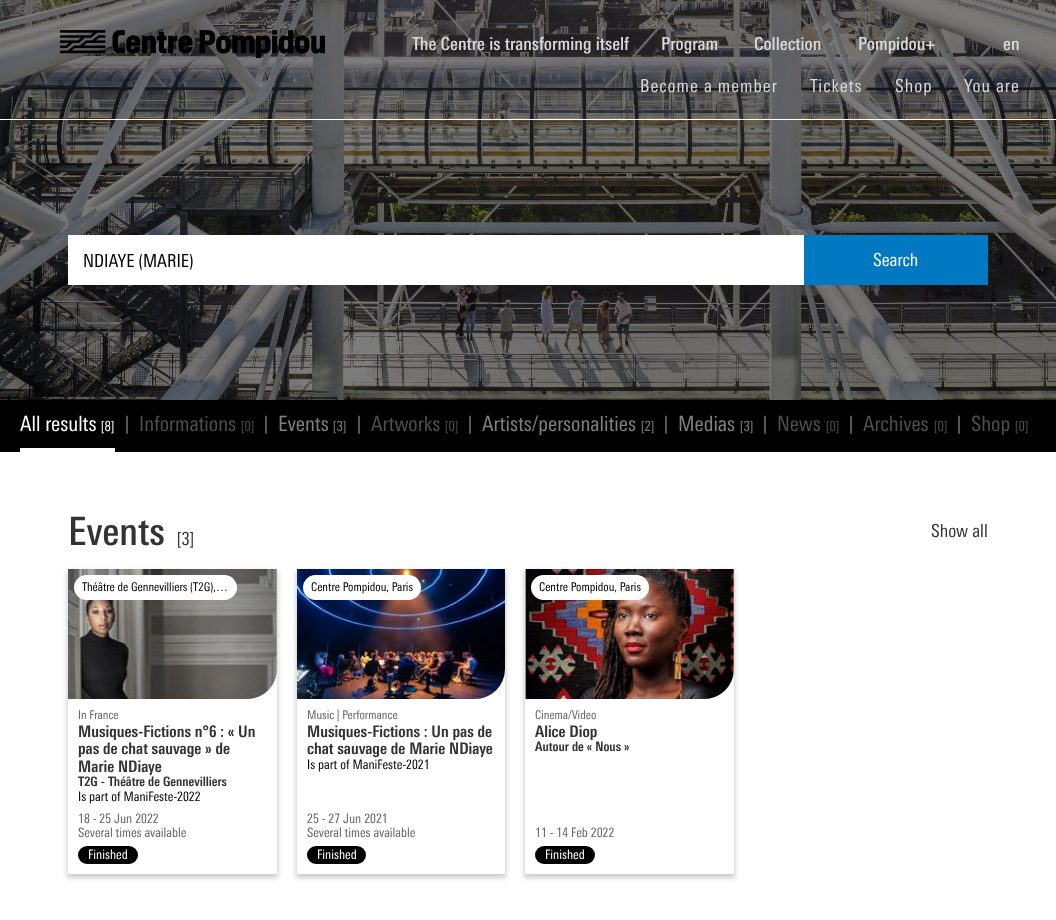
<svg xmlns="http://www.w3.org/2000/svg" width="1056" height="920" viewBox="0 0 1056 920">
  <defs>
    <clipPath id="clip1"><path d="M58 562H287V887H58ZM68 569H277V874H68Z" clip-rule="evenodd"/></clipPath>
    <filter id="blur1" x="-50%" y="-200%" width="200%" height="500%"><feGaussianBlur stdDeviation="2.5"/></filter>
    <clipPath id="clip2"><path d="M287 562H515V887H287ZM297 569H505V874H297Z" clip-rule="evenodd"/></clipPath>
    <clipPath id="clip3"><path d="M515 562H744V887H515ZM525 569H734V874H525Z" clip-rule="evenodd"/></clipPath>
  </defs>
  <rect width="100%" height="100%" fill="#ffffff"/>
  <image x="0" y="0" width="1056" height="400" href="img2.png"/>
  <rect x="0" y="119" width="1056" height="1" fill="#ffffff"/>
  <image x="60" y="30" width="265" height="28" href="img1.png"/>
  <text x="412" y="50" font-family="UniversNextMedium" font-size="18" font-weight="500" fill="#d9d9d9">The Centre is transforming itself</text>
  <text x="661" y="50" font-family="UniversNextMedium" font-size="18" font-weight="500" fill="#d9d9d9">Program</text>
  <text x="754" y="50" font-family="UniversNextMedium" font-size="18" font-weight="500" fill="#d9d9d9">Collection</text>
  <text x="858" y="50" font-family="UniversNextMedium" font-size="18" font-weight="500" fill="#d9d9d9">Pompidou+</text>
  <text x="1003" y="50" font-family="UniversNextMedium" font-size="18" font-weight="500" fill="#d9d9d9">en</text>
  <text x="640" y="92" font-family="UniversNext" font-size="18" letter-spacing="1" fill="#d9d9d9">Become a member</text>
  <text x="810" y="92" font-family="UniversNext" font-size="18" letter-spacing="1" fill="#d9d9d9">Tickets</text>
  <text x="895" y="92" font-family="UniversNext" font-size="18" letter-spacing="1" fill="#d9d9d9">Shop</text>
  <text x="964" y="92" font-family="UniversNext" font-size="18" letter-spacing="1" fill="#d9d9d9">You are</text>
  <rect x="68" y="235" width="736" height="50" fill="#ffffff"/>
  <text x="83" y="267" font-family="UniversNext" font-size="18" fill="#000000">NDIAYE (MARIE)</text>
  <rect x="804" y="235" width="184" height="50" fill="#0078c2"/>
  <text x="873" y="266" font-family="UniversNext" font-size="18" fill="#ffffff">Search</text>
  <rect x="0" y="400" width="1056" height="52" fill="#000000"/>
  <rect x="20" y="448" width="95" height="4" fill="#ffffff"/>
  <text x="20" y="431" font-family="UniversNext" font-size="21" fill="#ffffff">All results</text>
  <text x="101" y="431" font-family="UniversNext" font-size="14" fill="#ffffff">[8]</text>
  <text x="125" y="430" font-family="UniversNext" font-size="18" fill="#808080">|</text>
  <text x="139" y="431" font-family="UniversNext" font-size="21" fill="#4e4e4e">Informations</text>
  <text x="241" y="431" font-family="UniversNext" font-size="14" fill="#4e4e4e">[0]</text>
  <text x="264" y="430" font-family="UniversNext" font-size="18" fill="#808080">|</text>
  <text x="278" y="431" font-family="UniversNext" font-size="21" fill="#808080">Events</text>
  <text x="333" y="431" font-family="UniversNext" font-size="14" fill="#808080">[3]</text>
  <text x="357" y="430" font-family="UniversNext" font-size="18" fill="#808080">|</text>
  <text x="371" y="431" font-family="UniversNext" font-size="21" fill="#4e4e4e">Artworks</text>
  <text x="445" y="431" font-family="UniversNext" font-size="14" fill="#4e4e4e">[0]</text>
  <text x="468" y="430" font-family="UniversNext" font-size="18" fill="#808080">|</text>
  <text x="482" y="431" font-family="UniversNext" font-size="21" fill="#808080">Artists/personalities</text>
  <text x="641" y="431" font-family="UniversNext" font-size="14" fill="#808080">[2]</text>
  <text x="664" y="430" font-family="UniversNext" font-size="18" fill="#808080">|</text>
  <text x="678" y="431" font-family="UniversNext" font-size="21" fill="#808080">Medias</text>
  <text x="740" y="431" font-family="UniversNext" font-size="14" fill="#808080">[3]</text>
  <text x="763" y="430" font-family="UniversNext" font-size="18" fill="#808080">|</text>
  <text x="777" y="431" font-family="UniversNext" font-size="21" fill="#4e4e4e">News</text>
  <text x="826" y="431" font-family="UniversNext" font-size="14" fill="#4e4e4e">[0]</text>
  <text x="849" y="430" font-family="UniversNext" font-size="18" fill="#808080">|</text>
  <text x="863" y="431" font-family="UniversNext" font-size="21" fill="#4e4e4e">Archives</text>
  <text x="934" y="431" font-family="UniversNext" font-size="14" fill="#4e4e4e">[0]</text>
  <text x="957" y="430" font-family="UniversNext" font-size="18" fill="#808080">|</text>
  <text x="971" y="431" font-family="UniversNext" font-size="21" fill="#4e4e4e">Shop</text>
  <text x="1015" y="431" font-family="UniversNext" font-size="14" fill="#4e4e4e">[0]</text>
  <text x="68" y="545" font-family="UniversNextMedium" font-size="39" font-weight="500" fill="#333333">Events</text>
  <text x="177" y="545" font-family="UniversNext" font-size="18" fill="#333333">[3]</text>
  <text x="931" y="537" font-family="UniversNext" font-size="18" fill="#333333">Show all</text>
  <g clip-path="url(#clip1)">
    <rect x="67" y="571" width="211" height="307" fill="#000000" fill-opacity="0.2" filter="url(#blur1)"/>
  </g>
  <path d="M68 569H277V669C277 685.5 263.5 699 247 699H68Z" fill="#dddddd"/>
  <image x="68" y="569" width="209" height="130" href="img3.png"/>
  <rect x="74" y="575" width="163" height="25" rx="12.5" fill="#ffffff"/>
  <text x="82" y="591" font-family="UniversNext" font-size="12" fill="#000000">Théâtre de Gennevilliers (T2G),…</text>
  <text x="78" y="719" font-family="UniversNext" font-size="12" fill="#666666">In France</text>
  <text x="78" y="737" font-family="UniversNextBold" font-size="16" font-weight="bold" fill="#333333">Musiques-Fictions n°6 : « Un</text>
  <text x="78" y="754" font-family="UniversNextBold" font-size="16" font-weight="bold" fill="#333333">pas de chat sauvage » de</text>
  <text x="78" y="772" font-family="UniversNextBold" font-size="16" font-weight="bold" fill="#333333">Marie NDiaye</text>
  <text x="78" y="786" font-family="UniversNextBold" font-size="13" font-weight="bold" fill="#333333">T2G - Théâtre de Gennevilliers</text>
  <text x="78" y="801" font-family="UniversNext" font-size="13" fill="#000000">Is part of ManiFeste-2022</text>
  <text x="78" y="823" font-family="UniversNext" font-size="13" fill="#666666">18 - 25 Jun 2022</text>
  <text x="78" y="837" font-family="UniversNext" font-size="13" fill="#666666">Several times available</text>
  <rect x="78" y="846" width="60" height="18" rx="9" fill="#000000"/>
  <text x="88" y="859" font-family="UniversNext" font-size="13" fill="#ffffff">Finished</text>
  <g clip-path="url(#clip2)">
    <rect x="296" y="571" width="210" height="307" fill="#000000" fill-opacity="0.2" filter="url(#blur1)"/>
  </g>
  <image x="297" y="569" width="208" height="130" href="img4.png"/>
  <rect x="303" y="575" width="118" height="25" rx="12.5" fill="#ffffff"/>
  <text x="311" y="591" font-family="UniversNext" font-size="12" fill="#000000">Centre Pompidou, Paris</text>
  <text x="307" y="719" font-family="UniversNext" font-size="12" fill="#666666">Music | Performance</text>
  <text x="307" y="737" font-family="UniversNextBold" font-size="16" font-weight="bold" fill="#333333">Musiques-Fictions : Un pas de</text>
  <text x="307" y="754" font-family="UniversNextBold" font-size="16" font-weight="bold" fill="#333333">chat sauvage de Marie NDiaye</text>
  <text x="307" y="769" font-family="UniversNext" font-size="13" fill="#000000">Is part of ManiFeste-2021</text>
  <text x="307" y="823" font-family="UniversNext" font-size="13" fill="#666666">25 - 27 Jun 2021</text>
  <text x="307" y="837" font-family="UniversNext" font-size="13" fill="#666666">Several times available</text>
  <rect x="307" y="846" width="59" height="18" rx="9" fill="#000000"/>
  <text x="317" y="859" font-family="UniversNext" font-size="13" fill="#ffffff">Finished</text>
  <g clip-path="url(#clip3)">
    <rect x="524" y="571" width="211" height="307" fill="#000000" fill-opacity="0.2" filter="url(#blur1)"/>
  </g>
  <path d="M525 569H734V669C734 685.5 720.5 699 704 699H525Z" fill="#dddddd"/>
  <image x="525" y="569" width="209" height="130" href="img5.png"/>
  <rect x="531" y="575" width="118" height="25" rx="12.5" fill="#ffffff"/>
  <text x="539" y="591" font-family="UniversNext" font-size="12" fill="#000000">Centre Pompidou, Paris</text>
  <text x="535" y="719" font-family="UniversNext" font-size="12" fill="#666666">Cinema/Video</text>
  <text x="535" y="737" font-family="UniversNextBold" font-size="16" font-weight="bold" fill="#333333">Alice Diop</text>
  <text x="535" y="751" font-family="UniversNextBold" font-size="13" font-weight="bold" fill="#333333">Autour de « Nous »</text>
  <text x="535" y="837" font-family="UniversNext" font-size="13" fill="#666666">11 - 14 Feb 2022</text>
  <rect x="535" y="846" width="60" height="18" rx="9" fill="#000000"/>
  <text x="545" y="859" font-family="UniversNext" font-size="13" fill="#ffffff">Finished</text>
</svg>
